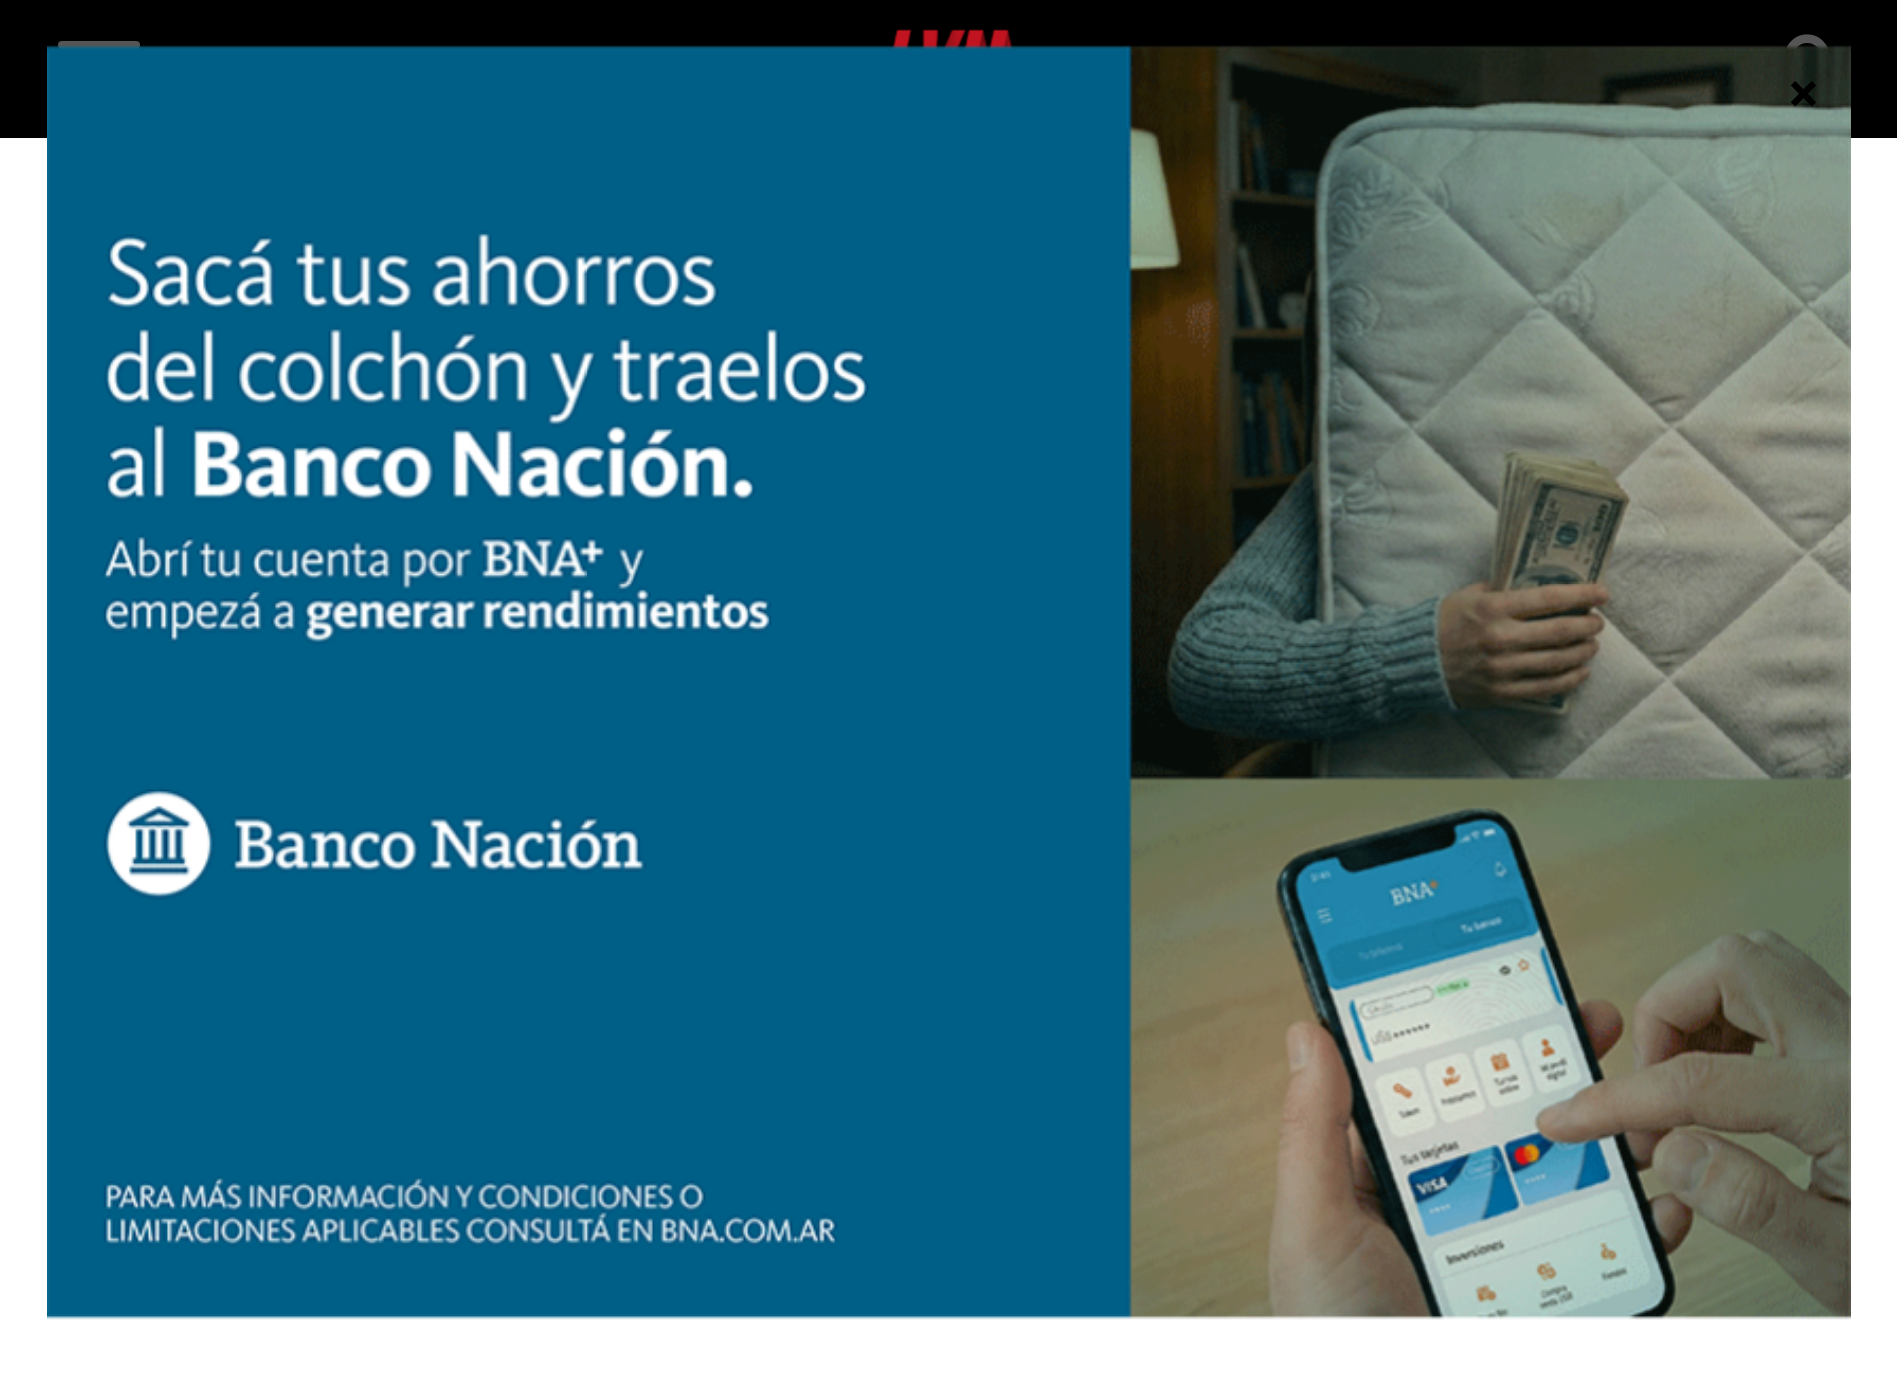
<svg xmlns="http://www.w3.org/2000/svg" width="1897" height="1375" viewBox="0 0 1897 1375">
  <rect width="100%" height="100%" fill="#ffffff"/>
  <rect x="0" y="0" width="1897" height="138" fill="#000000"/>
  <rect x="58" y="41" width="82" height="8" rx="4" fill="#555555"/>
  <image x="891" y="29" width="122" height="20" href="img1.png"/>
  <image x="1786" y="34" width="42" height="15" href="img2.png"/>
  <image x="47" y="45" width="1804" height="1275" href="img3.png"/>
  <text x="1789" y="112" font-family="Roboto" font-size="55" font-weight="bold" fill="#000000">×</text>
</svg>
